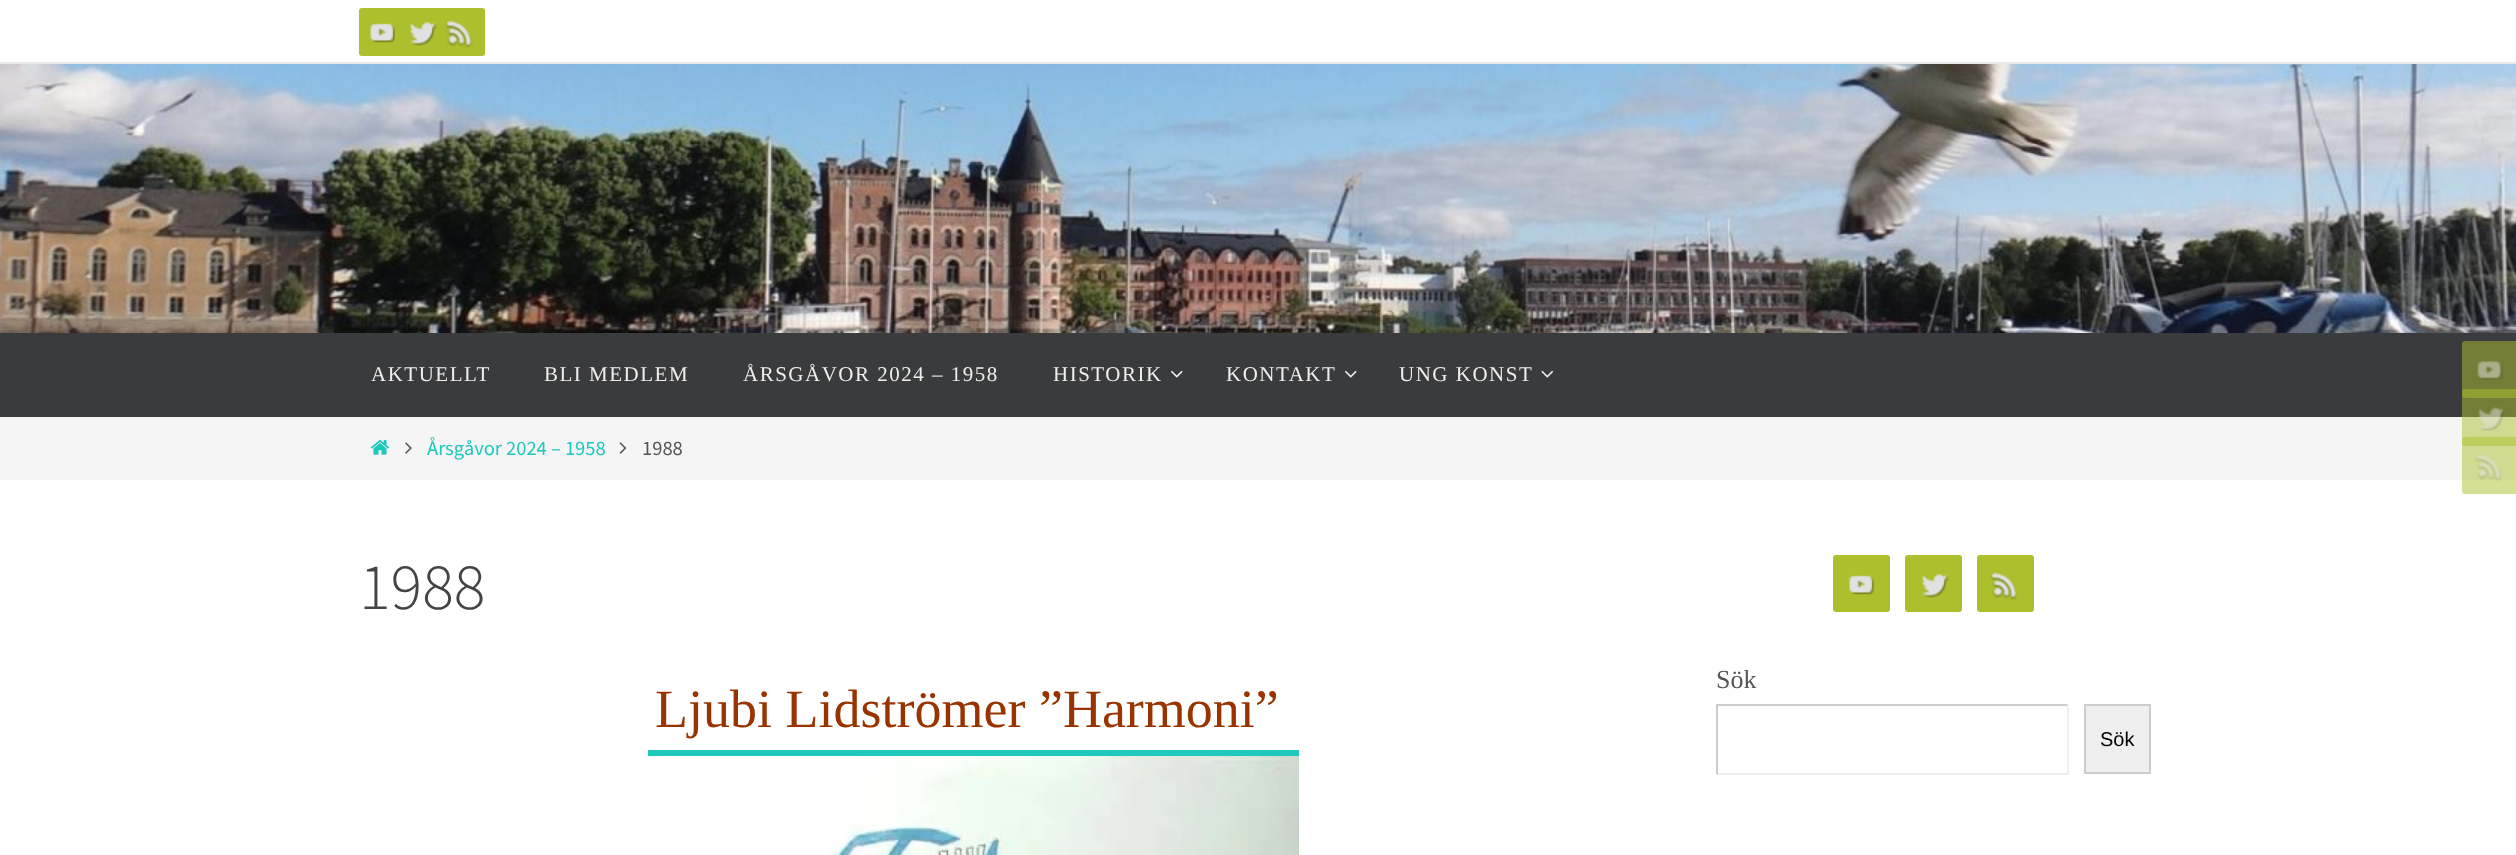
<svg xmlns="http://www.w3.org/2000/svg" width="2516" height="855" viewBox="0 0 2516 855">
  <rect width="100%" height="100%" fill="#ffffff"/>
  <rect x="0" y="62" width="2516" height="2" fill="#ebebeb"/>
  <rect x="359" y="8" width="48" height="48" rx="3" fill="#adbf2d"/>
  <image x="370" y="23" width="25" height="20" href="img1.png"/>
  <rect x="398" y="8" width="48" height="48" rx="3" fill="#adbf2d"/>
  <image x="409" y="22" width="28" height="24" href="img2.png"/>
  <rect x="437" y="8" width="48" height="48" rx="3" fill="#adbf2d"/>
  <image x="445" y="20" width="28" height="28" href="img3.png"/>
  <image x="0" y="64" width="2516" height="269" href="img4.png"/>
  <rect x="0" y="333" width="2516" height="84" fill="#3a3b3d"/>
  <text x="371" y="381" font-family="Liberation Serif" font-size="21" letter-spacing="1.5" fill="#eeeeee">AKTUELLT</text>
  <text x="544" y="381" font-family="Liberation Serif" font-size="21" letter-spacing="1.5" fill="#eeeeee">BLI MEDLEM</text>
  <text x="743" y="381" font-family="Liberation Serif" font-size="21" letter-spacing="1.5" fill="#eeeeee">ÅRSGÅVOR 2024 – 1958</text>
  <text x="1053" y="381" font-family="Liberation Serif" font-size="21" letter-spacing="1.5" fill="#eeeeee">HISTORIK</text>
  <image x="1171" y="370" width="12" height="8" href="img5.png"/>
  <text x="1226" y="381" font-family="Liberation Serif" font-size="21" letter-spacing="1.5" fill="#eeeeee">KONTAKT</text>
  <image x="1345" y="370" width="12" height="8" href="img5.png"/>
  <text x="1399" y="381" font-family="Liberation Serif" font-size="21" letter-spacing="1.5" fill="#eeeeee">UNG KONST</text>
  <image x="1541" y="370" width="13" height="8" href="img6.png"/>
  <rect x="2462" y="341" width="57" height="57" rx="3" fill="#747d35"/>
  <image x="2477" y="360" width="26" height="20" href="img7.png"/>
  <rect x="0" y="417" width="2516" height="63" fill="#f5f5f5"/>
  <rect x="2462" y="389" width="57" height="57" rx="3" fill="#adbf2d" fill-opacity="0.5"/>
  <image x="2478" y="407" width="27" height="24" href="img8.png"/>
  <rect x="2462" y="437" width="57" height="57" rx="3" fill="#adbf2d" fill-opacity="0.5"/>
  <image x="2475" y="454" width="27" height="27" href="img9.png"/>
  <image x="370" y="440" width="20" height="15" href="img10.png"/>
  <image x="405" y="442" width="7" height="12" href="img11.png"/>
  <text x="427" y="455" font-family="Source Sans Pro" font-size="20.5" fill="#1ec8bb">Årsgåvor 2024 – 1958</text>
  <image x="619" y="442" width="8" height="12" href="img12.png"/>
  <text x="642" y="455" font-family="Source Sans Pro" font-size="20.5" fill="#555555">1988</text>
  <text x="359" y="609" font-family="Source Sans Pro" font-size="66" font-weight="300" fill="#444444">1988</text>
  <text x="655" y="727" font-family="Liberation Serif" font-size="54" fill="#993300">Ljubi Lidströmer ”Harmoni”</text>
  <rect x="648" y="750" width="651" height="6" fill="#20c9bc"/>
  <image x="828" y="756" width="471" height="99" href="img13.png"/>
  <rect x="1833" y="555" width="57" height="57" rx="3" fill="#adbf2d"/>
  <image x="1849" y="575" width="25" height="20" href="img1.png"/>
  <rect x="1905" y="555" width="57" height="57" rx="3" fill="#adbf2d"/>
  <image x="1921" y="574" width="28" height="24" href="img2.png"/>
  <rect x="1977" y="555" width="57" height="57" rx="3" fill="#adbf2d"/>
  <image x="1990" y="572" width="28" height="28" href="img3.png"/>
  <text x="1716" y="688" font-family="Liberation Serif" font-size="26" fill="#555555">Sök</text>
  <rect x="1716" y="704" width="353" height="2" fill="#cccccc"/>
  <rect x="2067" y="704" width="2" height="70" fill="#eeeeee"/>
  <rect x="1716" y="773" width="353" height="2" fill="#eeeeee"/>
  <rect x="1716" y="704" width="2" height="70" fill="#cccccc"/>
  <rect x="2085" y="705" width="65" height="68" fill="#efefef" stroke="#cccccc" stroke-width="2"/>
  <text x="2100" y="746" font-family="Liberation Sans" font-size="20" fill="#000000">Sök</text>
</svg>
